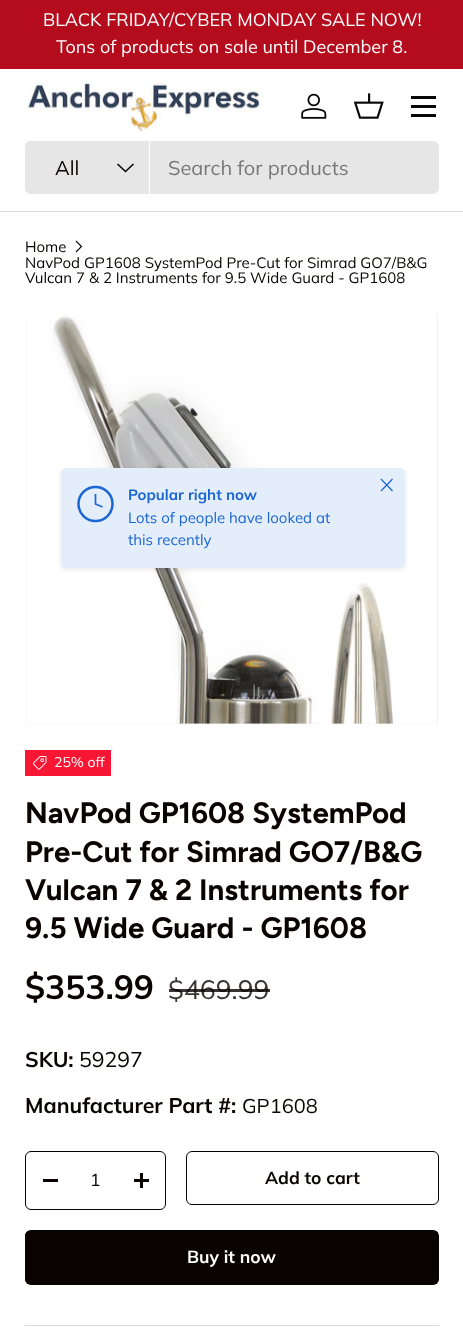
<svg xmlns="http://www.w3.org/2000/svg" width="463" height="1335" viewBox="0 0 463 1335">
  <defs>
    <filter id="blur1" x="-50%" y="-200%" width="200%" height="500%"><feGaussianBlur stdDeviation="2.5"/></filter>
    <clipPath id="clip1"><rect x="25" y="1230" width="414" height="55" rx="6"/></clipPath>
    <linearGradient id="g1" gradientUnits="userSpaceOnUse" x1="-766" y1="1111" x2="408" y2="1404"><stop offset="0.6" stop-color="#36302f"/><stop offset="0.6" stop-color="#090302"/><stop offset="1" stop-color="#090302"/></linearGradient>
  </defs>
  <rect width="100%" height="100%" fill="#ffffff"/>
  <rect x="0" y="0" width="463" height="69" fill="#b40c1c"/>
  <text x="43" y="26" font-family="Muli" font-size="18" fill="#ffffff">BLACK FRIDAY/CYBER MONDAY SALE NOW!</text>
  <text x="56" y="53" font-family="Muli" font-size="18" fill="#ffffff">Tons of products on sale until December 8.</text>
  <rect x="0" y="211" width="463" height="1" fill="#dadada"/>
  <image x="25" y="80" width="236" height="53" href="img1.png"/>
  <image x="301" y="93" width="26" height="26" href="img2.png"/>
  <image x="354" y="93" width="30" height="26" href="img3.png"/>
  <rect x="411" y="96" width="25" height="3" fill="#070707"/>
  <rect x="411" y="114" width="25" height="3" fill="#070707"/>
  <rect x="411" y="105" width="25" height="3" fill="#070707"/>
  <rect x="25" y="141" width="414" height="53" rx="6" fill="#e6e6e6"/>
  <path d="M31 141H150V194H31C27.5 194 25 191.5 25 188V147C25 143.5 27.5 141 31 141Z" fill="#e6e6e6"/>
  <rect x="149" y="141" width="1" height="53" fill="#ffffff"/>
  <text x="55" y="175" font-family="Muli" font-size="20" fill="#090302">All</text>
  <path d="M133.5 164L125.5 171.5L117.5 164" fill="none" stroke="#070707" stroke-width="1.6"/>
  <text x="168" y="175" font-family="Muli" font-size="20" fill="#777777">Search for products</text>
  <text x="25" y="252" font-family="Muli" font-size="15" fill="#090302">Home</text>
  <path d="M76 241L81.5 246.5L76 252" fill="none" stroke="#090302" stroke-width="1.1"/>
  <text x="25" y="268" font-family="Muli" font-size="15" fill="#090302">NavPod GP1608 SystemPod Pre-Cut for Simrad GO7/B&amp;G</text>
  <text x="25" y="283" font-family="Muli" font-size="15" fill="#090302">Vulcan 7 &amp; 2 Instruments for 9.5 Wide Guard - GP1608</text>
  <rect x="26" y="313" width="412" height="411" fill="#f2f2f2"/>
  <image x="26" y="313" width="411" height="411" href="img4.png"/>
  <rect x="61" y="470" width="344" height="100" rx="5" fill="#212b36" fill-opacity="0.08" filter="url(#blur1)"/>
  <rect x="61" y="468" width="344" height="100" rx="5" fill="#e4edfa"/>
  <circle cx="95.5" cy="504" r="17" fill="none" stroke="#1a66d2" stroke-width="2.5"/>
  <path d="M95.5 494V504L102.5 507" fill="none" stroke="#1a66d2" stroke-width="1.7"/>
  <text x="128" y="500" font-family="Muli" font-size="15" font-weight="bold" fill="#1a66d2">Popular right now</text>
  <text x="128" y="523" font-family="Muli" font-size="15" fill="#1a66d2">Lots of people have looked at</text>
  <text x="128" y="545" font-family="Muli" font-size="15" fill="#1a66d2">this recently</text>
  <path d="M381 491L392.5 479M381 479L392.5 491" fill="none" stroke="#1a66d2" stroke-width="1.2" stroke-linejoin="round"/>
  <rect x="25" y="750" width="86" height="26" fill="#f71735"/>
  <image x="33" y="756" width="14" height="14" href="img5.png"/>
  <text x="54" y="767" font-family="Muli" font-size="14" fill="#ffffff">25% off</text>
  <text x="25" y="823" font-family="Figtree" font-size="29.5" font-weight="bold" fill="#090302">NavPod GP1608 SystemPod</text>
  <text x="25" y="862" font-family="Figtree" font-size="29.5" font-weight="bold" fill="#090302">Pre-Cut for Simrad GO7/B&amp;G</text>
  <text x="25" y="900" font-family="Figtree" font-size="29.5" font-weight="bold" fill="#090302">Vulcan 7 &amp; 2 Instruments for</text>
  <text x="25" y="938" font-family="Figtree" font-size="29.5" font-weight="bold" fill="#090302">9.5 Wide Guard - GP1608</text>
  <text x="25" y="999" font-family="Muli" font-size="33.5" font-weight="bold" fill="#090302">$353.99</text>
  <text x="168" y="999" font-family="Muli" font-size="26.5" fill="#3a3535">$469.99</text>
  <rect x="169" y="989" width="101" height="3" fill="#090302" fill-opacity="0.8"/>
  <text x="25" y="1067" font-family="Muli" font-size="21.25" font-weight="bold" fill="#090302">SKU:</text>
  <text x="79" y="1067" font-family="Muli" font-size="21.25" fill="#090302">59297</text>
  <text x="25" y="1113" font-family="Muli" font-size="21.25" font-weight="bold" fill="#090302">Manufacturer Part #:</text>
  <text x="242" y="1113" font-family="Muli" font-size="20" fill="#090302">GP1608</text>
  <rect x="25.5" y="1151.5" width="140" height="58" rx="5.5" fill="none" stroke="#090302"/>
  <rect x="43" y="1179" width="15" height="3" fill="#090302"/>
  <text x="90" y="1186" font-family="Muli" font-size="17.5" fill="#090302">1</text>
  <rect x="134" y="1179" width="15" height="3" fill="#090302"/>
  <rect x="140" y="1173" width="3" height="15" fill="#090302"/>
  <rect x="186.5" y="1151.5" width="252" height="53" rx="5.5" fill="none" stroke="#090302"/>
  <text x="265" y="1184" font-family="Muli" font-size="17.5" font-weight="bold" fill="#090302">Add to cart</text>
  <g clip-path="url(#clip1)">
    <rect x="25" y="1231" width="413" height="53" fill="url(#g1)"/>
  </g>
  <rect x="25.5" y="1230.5" width="413" height="54" rx="5.5" fill="none" stroke="#090302"/>
  <text x="187" y="1263" font-family="Muli" font-size="17.5" font-weight="bold" fill="#ffffff">Buy it now</text>
  <rect x="25" y="1325" width="414" height="1" fill="#dad9d9"/>
</svg>
